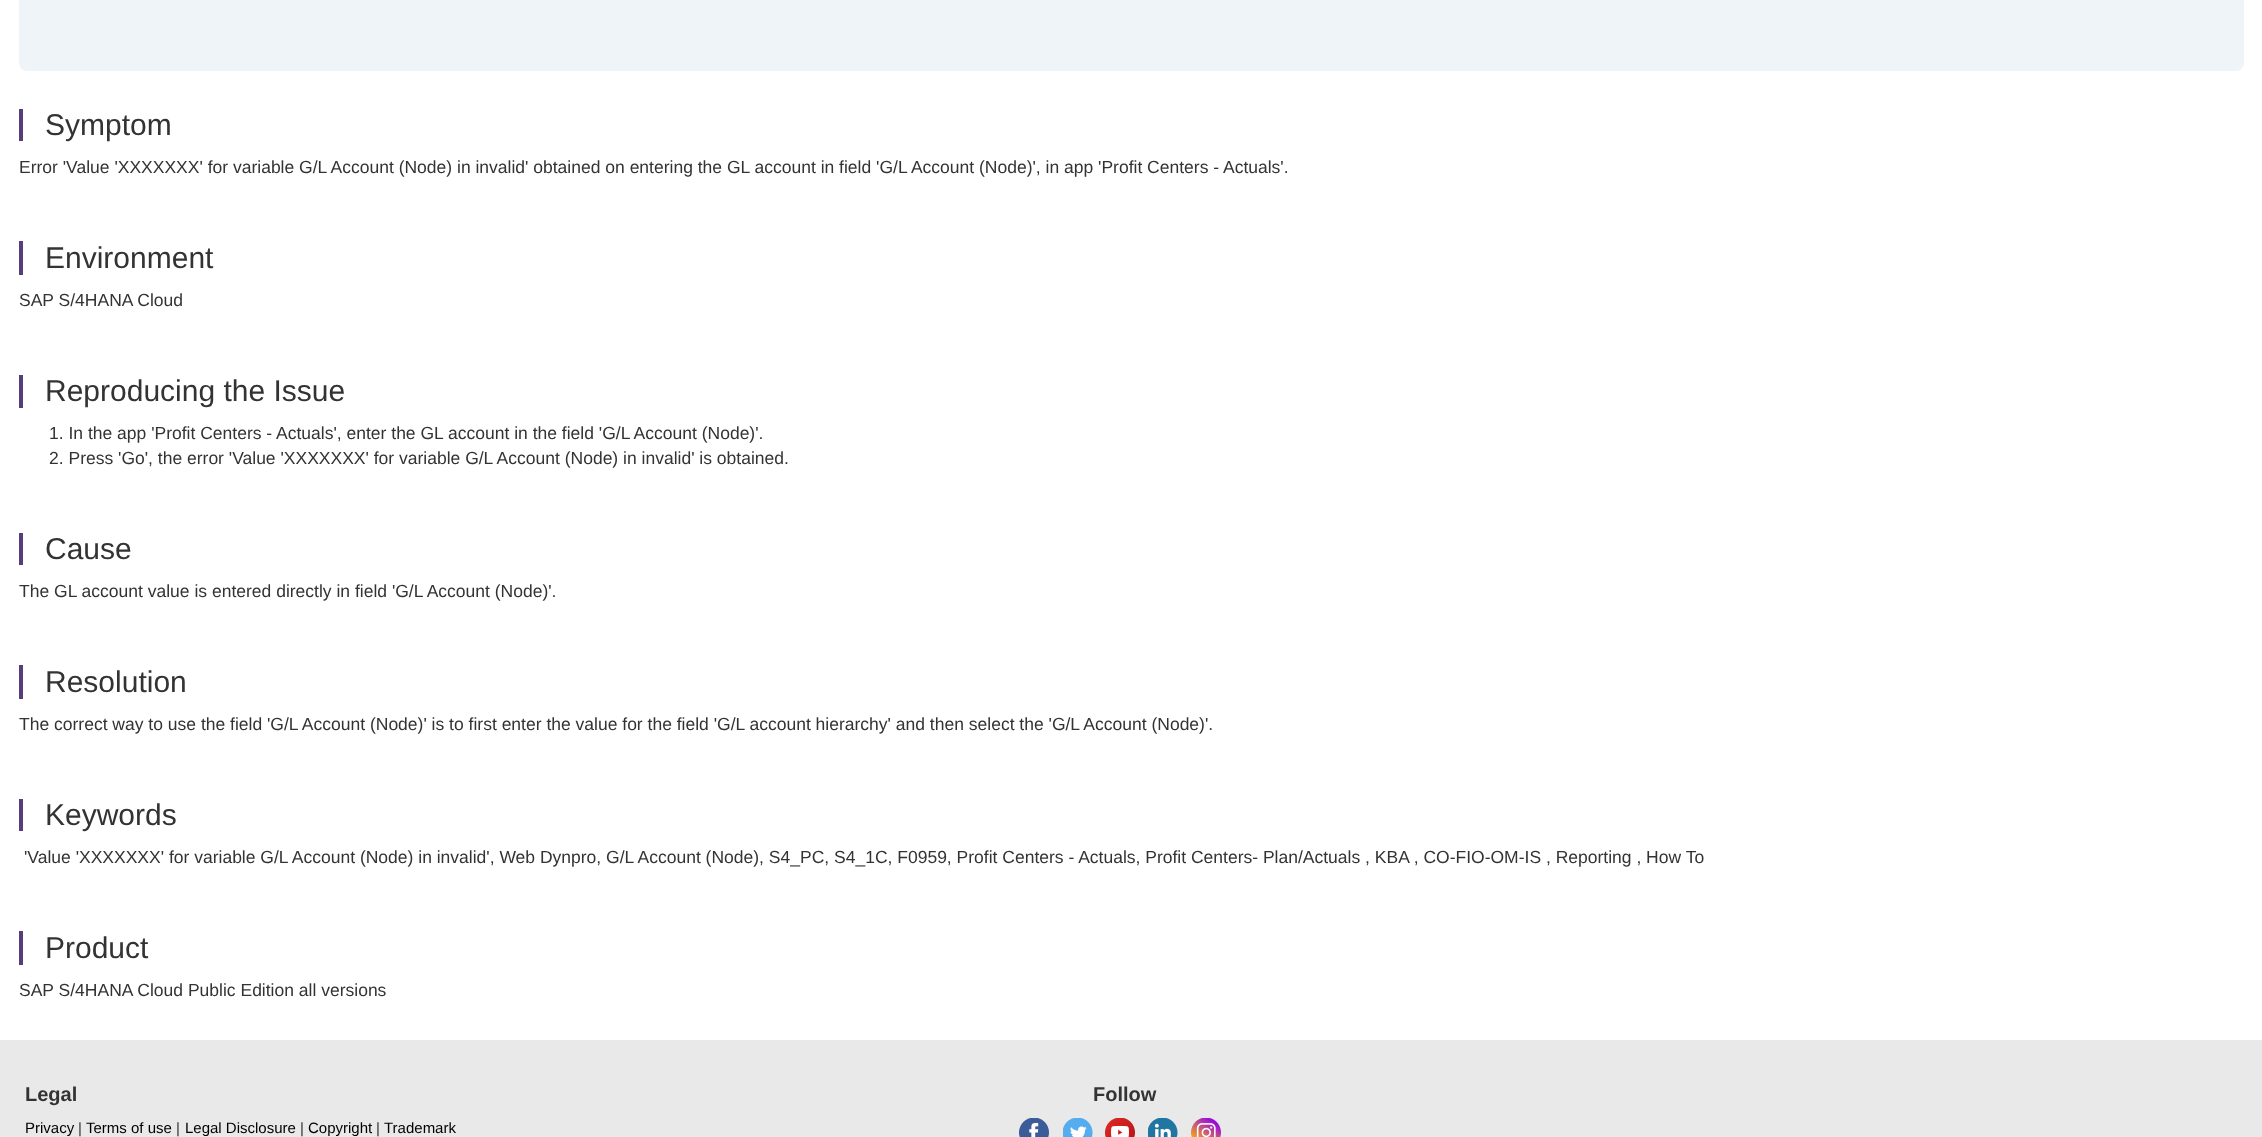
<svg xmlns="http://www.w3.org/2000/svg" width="2262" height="1137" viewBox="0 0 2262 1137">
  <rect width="100%" height="100%" fill="#ffffff"/>
  <rect x="19" y="-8" width="2225" height="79" rx="8" fill="#eff4f9"/>
  <rect x="19" y="109" width="4" height="32" fill="#563d7c"/>
  <text x="45" y="135" font-family="Liberation Sans" font-size="30" fill="#333333">Symptom</text>
  <text x="19" y="173" font-family="Liberation Sans" font-size="17.5" fill="#333333">Error 'Value 'XXXXXXX' for variable G/L Account (Node) in invalid' obtained on entering the GL account in field 'G/L Account (Node)', in app 'Profit Centers - Actuals'.</text>
  <rect x="19" y="241" width="4" height="34" fill="#563d7c"/>
  <text x="45" y="268" font-family="Liberation Sans" font-size="30" fill="#333333">Environment</text>
  <text x="19" y="306" font-family="Liberation Sans" font-size="17.5" fill="#333333">SAP S/4HANA Cloud</text>
  <rect x="19" y="375" width="4" height="33" fill="#563d7c"/>
  <text x="45" y="401" font-family="Liberation Sans" font-size="30" fill="#333333">Reproducing the Issue</text>
  <text x="49" y="439" font-family="Liberation Sans" font-size="17.5" fill="#333333">1. In the app 'Profit Centers - Actuals', enter the GL account in the field 'G/L Account (Node)'.</text>
  <text x="49" y="464" font-family="Liberation Sans" font-size="17.5" fill="#333333">2. Press 'Go', the error 'Value 'XXXXXXX' for variable G/L Account (Node) in invalid' is obtained.</text>
  <rect x="19" y="533" width="4" height="32" fill="#563d7c"/>
  <text x="45" y="559" font-family="Liberation Sans" font-size="30" fill="#333333">Cause</text>
  <text x="19" y="597" font-family="Liberation Sans" font-size="17.5" fill="#333333">The GL account value is entered directly in field 'G/L Account (Node)'.</text>
  <rect x="19" y="665" width="4" height="34" fill="#563d7c"/>
  <text x="45" y="692" font-family="Liberation Sans" font-size="30" fill="#333333">Resolution</text>
  <text x="19" y="730" font-family="Liberation Sans" font-size="17.5" fill="#333333">The correct way to use the field 'G/L Account (Node)' is to first enter the value for the field 'G/L account hierarchy' and then select the 'G/L Account (Node)'.</text>
  <rect x="19" y="799" width="4" height="32" fill="#563d7c"/>
  <text x="45" y="825" font-family="Liberation Sans" font-size="30" fill="#333333">Keywords</text>
  <text x="24" y="863" font-family="Liberation Sans" font-size="17.5" fill="#333333">'Value 'XXXXXXX' for variable G/L Account (Node) in invalid', Web Dynpro, G/L Account (Node), S4_PC, S4_1C, F0959, Profit Centers - Actuals, Profit Centers- Plan/Actuals , KBA , CO-FIO-OM-IS , Reporting , How To</text>
  <rect x="19" y="931" width="4" height="34" fill="#563d7c"/>
  <text x="45" y="958" font-family="Liberation Sans" font-size="30" fill="#333333">Product</text>
  <text x="19" y="996" font-family="Liberation Sans" font-size="17.5" fill="#333333">SAP S/4HANA Cloud Public Edition all versions</text>
  <rect x="0" y="1040" width="2262" height="97" fill="#e9e9e9"/>
  <text x="25" y="1101" font-family="Liberation Sans" font-size="20" font-weight="bold" fill="#333333">Legal</text>
  <text x="25" y="1133" font-family="Liberation Sans" font-size="15" fill="#000000">Privacy</text>
  <text x="78" y="1133" font-family="Liberation Sans" font-size="15" fill="#333333">|</text>
  <text x="86" y="1133" font-family="Liberation Sans" font-size="15" fill="#000000">Terms of use</text>
  <text x="176" y="1133" font-family="Liberation Sans" font-size="15" fill="#333333">|</text>
  <text x="185" y="1133" font-family="Liberation Sans" font-size="15" fill="#000000">Legal Disclosure</text>
  <text x="300" y="1133" font-family="Liberation Sans" font-size="15" fill="#333333">|</text>
  <text x="308" y="1133" font-family="Liberation Sans" font-size="15" fill="#000000">Copyright</text>
  <text x="376" y="1133" font-family="Liberation Sans" font-size="15" fill="#333333">|</text>
  <text x="384" y="1133" font-family="Liberation Sans" font-size="15" fill="#000000">Trademark</text>
  <text x="1093" y="1101" font-family="Liberation Sans" font-size="20" font-weight="bold" fill="#333333">Follow</text>
  <image x="1019" y="1118" width="30" height="19" href="img1.png"/>
  <image x="1063" y="1118" width="30" height="19" href="img2.png"/>
  <image x="1105" y="1118" width="30" height="19" href="img3.png"/>
  <image x="1148" y="1118" width="30" height="19" href="img4.png"/>
  <image x="1191" y="1118" width="30" height="19" href="img5.png"/>
</svg>
